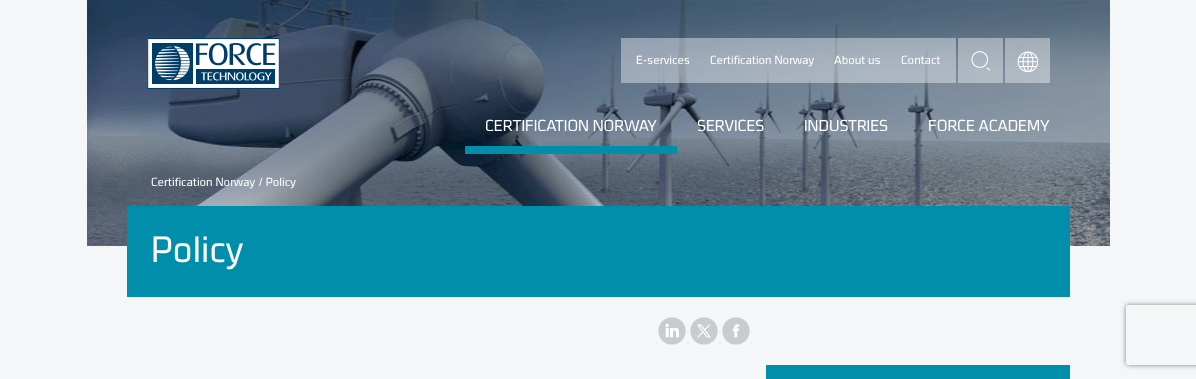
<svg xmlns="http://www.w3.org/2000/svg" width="1196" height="379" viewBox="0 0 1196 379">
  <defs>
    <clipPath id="clip1"><path d="M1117 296H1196V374H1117ZM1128 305H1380C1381 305 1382 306 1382 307V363C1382 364 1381 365 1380 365H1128C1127 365 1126 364 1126 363V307C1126 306 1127 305 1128 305Z" clip-rule="evenodd"/></clipPath>
    <filter id="blur1" x="-50%" y="-200%" width="200%" height="500%"><feGaussianBlur stdDeviation="2.5"/></filter>
  </defs>
  <rect width="100%" height="100%" fill="#f4f6f7"/>
  <image x="87" y="0" width="1023" height="246" href="img1.png"/>
  <image x="147" y="38" width="133" height="51" href="img2.png"/>
  <rect x="621" y="38" width="79" height="45" fill="#ffffff" fill-opacity="0.4"/>
  <text x="636" y="64" font-family="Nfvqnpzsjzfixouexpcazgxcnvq" font-size="12" font-weight="300" fill="#ffffff">E-services</text>
  <rect x="700" y="38" width="124" height="45" fill="#ffffff" fill-opacity="0.4"/>
  <text x="710" y="64" font-family="Nfvqnpzsjzfixouexpcazgxcnvq" font-size="12" font-weight="300" fill="#ffffff">Certification Norway</text>
  <rect x="824" y="38" width="67" height="45" fill="#ffffff" fill-opacity="0.4"/>
  <text x="834" y="64" font-family="Nfvqnpzsjzfixouexpcazgxcnvq" font-size="12" font-weight="300" fill="#ffffff">About us</text>
  <rect x="891" y="38" width="65" height="45" fill="#ffffff" fill-opacity="0.4"/>
  <text x="901" y="64" font-family="Nfvqnpzsjzfixouexpcazgxcnvq" font-size="12" font-weight="300" fill="#ffffff">Contact</text>
  <rect x="958" y="38" width="45" height="45" fill="#ffffff" fill-opacity="0.4"/>
  <image x="971" y="51" width="19" height="20" href="img3.png"/>
  <rect x="1005" y="38" width="45" height="45" fill="#ffffff" fill-opacity="0.4"/>
  <image x="1017" y="51" width="21" height="21" href="img4.png"/>
  <rect x="465" y="146" width="212" height="8" fill="#008eaa"/>
  <text x="485" y="131" font-family="Nfvqnpzsjzfixouexpcazgxcnvq" font-size="16" font-weight="300" fill="#ffffff">CERTIFICATION NORWAY</text>
  <text x="697" y="131" font-family="Nfvqnpzsjzfixouexpcazgxcnvq" font-size="16" font-weight="300" fill="#ffffff">SERVICES</text>
  <text x="804" y="131" font-family="Nfvqnpzsjzfixouexpcazgxcnvq" font-size="16" font-weight="300" fill="#ffffff">INDUSTRIES</text>
  <text x="928" y="131" font-family="Nfvqnpzsjzfixouexpcazgxcnvq" font-size="16" font-weight="300" fill="#ffffff">FORCE ACADEMY</text>
  <text x="151" y="186" font-family="Nfvqnpzsjzfixouexpcazgxcnvq" font-size="12" font-weight="300" fill="#ffffff">Certification Norway / Policy</text>
  <rect x="127" y="206" width="943" height="91" fill="#008eaa"/>
  <text x="151" y="262" font-family="Nfvqnpzsjzfixouexpcazgxcnvq" font-size="37" font-weight="300" fill="#ffffff">Policy</text>
  <image x="658" y="317" width="28" height="28" href="img5.png"/>
  <image x="690" y="317" width="28" height="28" href="img6.png"/>
  <image x="722" y="317" width="28" height="28" href="img7.png"/>
  <rect x="766" y="365" width="304" height="14" fill="#008eaa"/>
  <g clip-path="url(#clip1)">
    <rect x="1126" y="305" width="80" height="60" rx="2" fill="#808080" filter="url(#blur1)"/>
  </g>
</svg>
